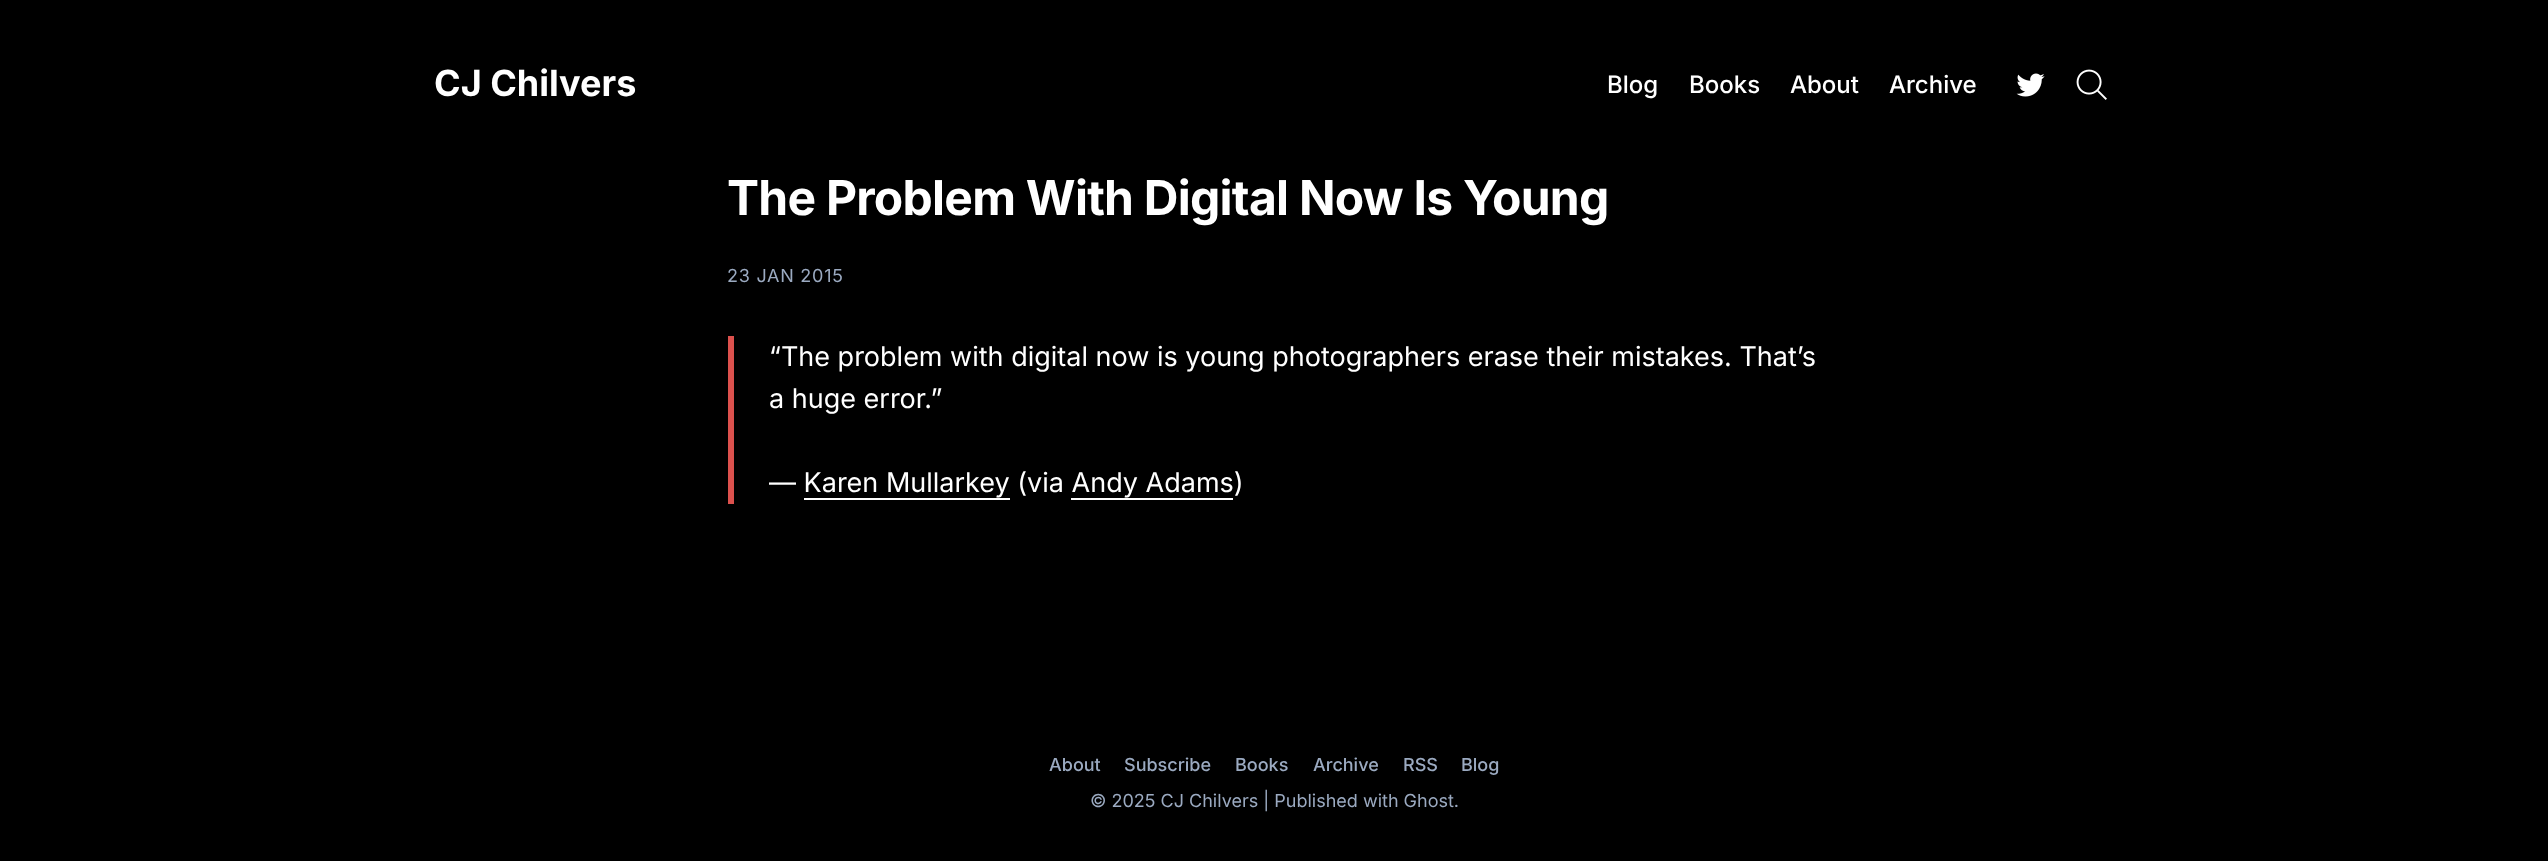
<svg xmlns="http://www.w3.org/2000/svg" width="2548" height="861" viewBox="0 0 2548 861">
  <rect width="100%" height="100%" fill="#000000"/>
  <text x="434" y="96" font-family="Inter" font-size="36" font-weight="bold" fill="#ffffff">CJ Chilvers</text>
  <text x="1607" y="93" font-family="Inter" font-size="24" font-weight="500" fill="#ffffff">Blog</text>
  <text x="1689" y="93" font-family="Inter" font-size="24" font-weight="500" fill="#ffffff">Books</text>
  <text x="1790" y="93" font-family="Inter" font-size="24" font-weight="500" fill="#ffffff">About</text>
  <text x="1889" y="93" font-family="Inter" font-size="24" font-weight="500" fill="#ffffff">Archive</text>
  <image x="2016" y="73" width="29" height="24" href="img1.png"/>
  <image x="2076" y="69" width="31" height="31" href="img2.png"/>
  <text x="727" y="215" font-family="Inter" font-size="48" font-weight="bold" letter-spacing="-0.75" fill="#ffffff">The Problem With Digital Now Is Young</text>
  <text x="727" y="282" font-family="Inter" font-size="18" letter-spacing="0.75" fill="#9baac1">23 JAN 2015</text>
  <rect x="728" y="336" width="6" height="168" fill="#dc514d"/>
  <text x="769" y="366" font-family="Inter" font-size="27" fill="#ffffff">“The problem with digital now is young photographers erase their mistakes. That’s</text>
  <text x="769" y="408" font-family="Inter" font-size="27" fill="#ffffff">a huge error.”</text>
  <text x="769" y="492" font-family="Inter" font-size="27" fill="#ffffff">— Karen Mullarkey (via Andy Adams)</text>
  <rect x="804" y="498" width="206" height="2" fill="#ffffff"/>
  <rect x="1071" y="498" width="162" height="2" fill="#ffffff"/>
  <text x="1049" y="771" font-family="Inter" font-size="18" font-weight="500" fill="#9baac1">About</text>
  <text x="1124" y="771" font-family="Inter" font-size="18" font-weight="500" fill="#9baac1">Subscribe</text>
  <text x="1235" y="771" font-family="Inter" font-size="18" font-weight="500" fill="#9baac1">Books</text>
  <text x="1313" y="771" font-family="Inter" font-size="18" font-weight="500" fill="#9baac1">Archive</text>
  <text x="1403" y="771" font-family="Inter" font-size="18" font-weight="500" fill="#9baac1">RSS</text>
  <text x="1461" y="771" font-family="Inter" font-size="18" font-weight="500" fill="#9baac1">Blog</text>
  <text x="1090" y="807" font-family="Inter" font-size="18" fill="#9baac1">© 2025 CJ Chilvers | Published with Ghost.</text>
</svg>
